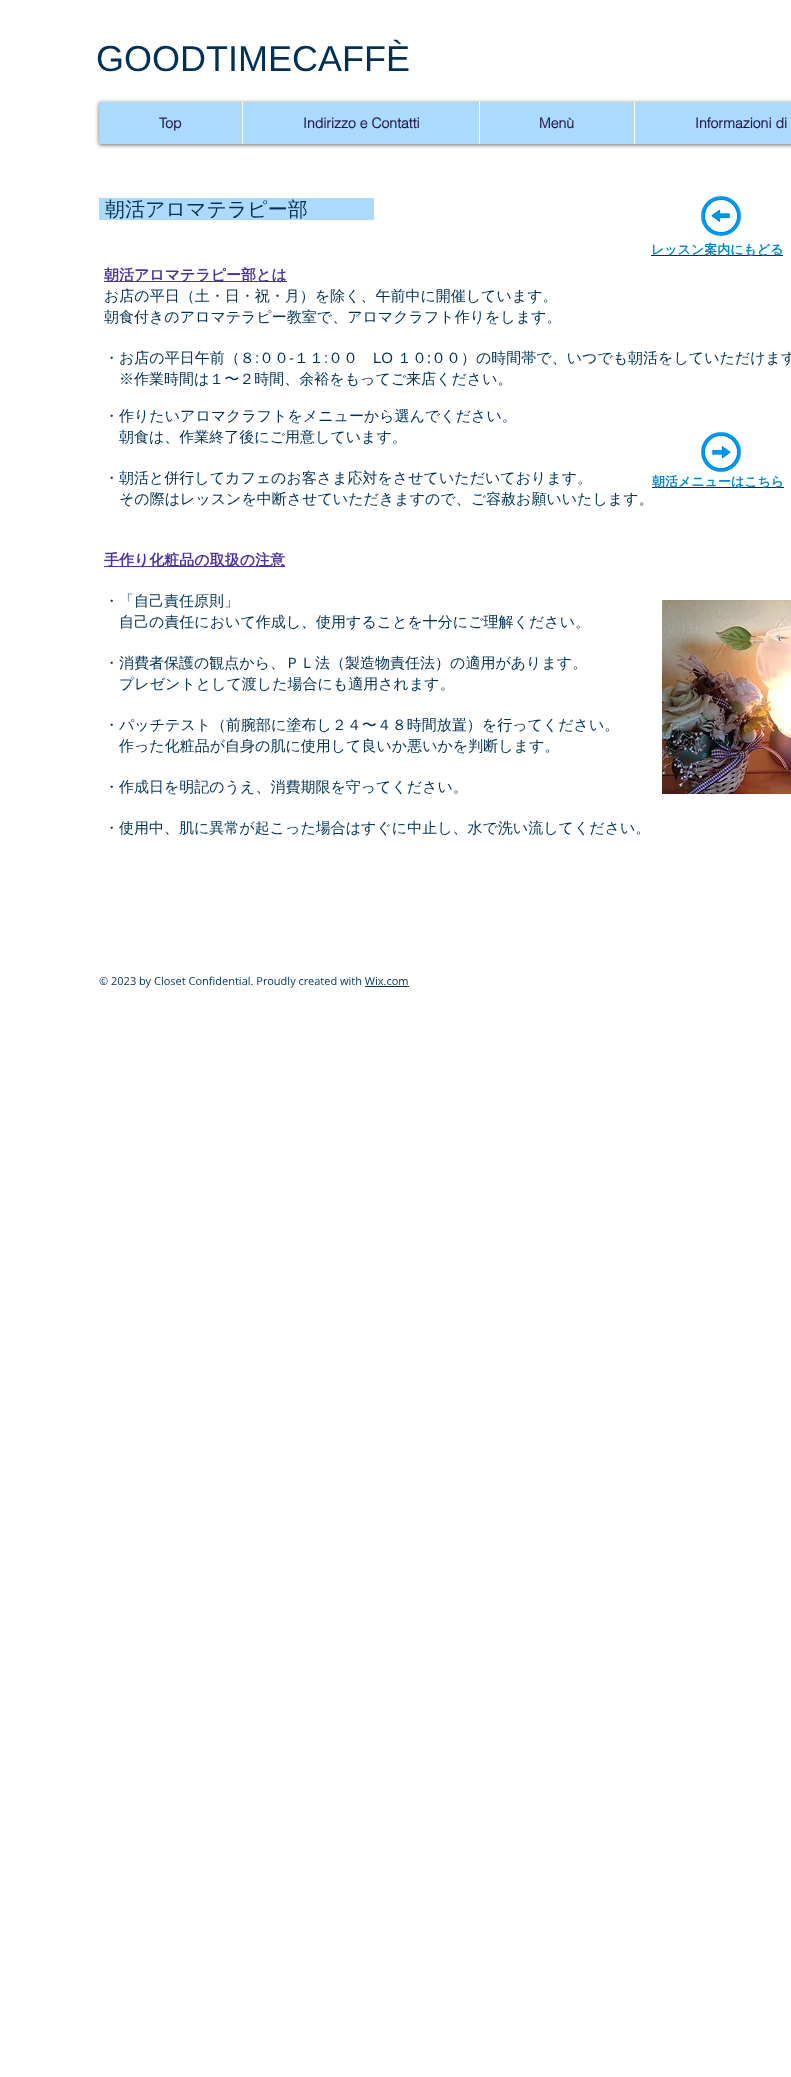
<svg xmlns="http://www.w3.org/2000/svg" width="791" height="2077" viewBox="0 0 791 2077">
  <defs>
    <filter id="blur1" x="-50%" y="-200%" width="200%" height="500%"><feGaussianBlur stdDeviation="2"/></filter>
  </defs>
  <rect width="100%" height="100%" fill="#ffffff"/>
  <text x="96" y="71" font-family="Liberation Sans" font-size="36" fill="#003154">GOODTIMECAFFÈ</text>
  <rect x="99" y="103" width="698" height="42" fill="#000000" fill-opacity="0.6" filter="url(#blur1)"/>
  <rect x="99" y="102" width="692" height="42" fill="#aadbff"/>
  <text x="159" y="128" font-family="helvetica" font-size="14" font-weight="bold" fill="#251951">Top</text>
  <rect x="242" y="102" width="1" height="42" fill="#ffffff"/>
  <text x="303" y="128" font-family="helvetica" font-size="14" font-weight="bold" fill="#251951">Indirizzo e Contatti</text>
  <rect x="479" y="102" width="1" height="42" fill="#ffffff"/>
  <text x="539" y="128" font-family="helvetica" font-size="14" font-weight="bold" fill="#251951">Menù</text>
  <rect x="634" y="102" width="1" height="42" fill="#ffffff"/>
  <text x="695" y="128" font-family="helvetica" font-size="14" font-weight="bold" fill="#251951">Informazioni di</text>
  <rect x="99" y="198" width="275" height="22" fill="#aadbff"/>
  <text x="105" y="216" font-family="WenQuanYi Zen Hei" font-size="20" font-weight="500" fill="#003154">朝活アロマテラピー部</text>
  <image x="701" y="196" width="40" height="40" href="img1.png"/>
  <rect x="651" y="255" width="132" height="1" fill="#003154"/>
  <text x="651" y="254" font-family="WenQuanYi Zen Hei" font-size="13" font-weight="bold" fill="#0088cb">レッスン案内にもどる</text>
  <rect x="104" y="281" width="183" height="1" fill="#4a32a2"/>
  <text x="104" y="280" font-family="WenQuanYi Zen Hei" font-size="15" font-weight="bold" fill="#4a32a2">朝活アロマテラピー部とは</text>
  <text x="104" y="301" font-family="WenQuanYi Zen Hei" font-size="15" font-weight="500" fill="#003154">お店の平日（土・日・祝・月）を除く、午前中に開催しています。</text>
  <text x="104" y="322" font-family="WenQuanYi Zen Hei" font-size="15" font-weight="500" fill="#003154">朝食付きのアロマテラピー教室で、アロマクラフト作りをします。</text>
  <text x="104" y="363" font-family="WenQuanYi Zen Hei" font-size="15" font-weight="500" fill="#003154">・お店の平日午前（８</text>
  <text x="255" y="363" font-family="Liberation Sans" font-size="15" fill="#003154">:</text>
  <text x="259" y="363" font-family="WenQuanYi Zen Hei" font-size="15" font-weight="500" fill="#003154">００</text>
  <text x="289" y="363" font-family="Liberation Sans" font-size="15" fill="#003154">-</text>
  <text x="294" y="363" font-family="WenQuanYi Zen Hei" font-size="15" font-weight="500" fill="#003154">１１</text>
  <text x="324" y="363" font-family="Liberation Sans" font-size="15" fill="#003154">:</text>
  <text x="328" y="363" font-family="WenQuanYi Zen Hei" font-size="15" font-weight="500" fill="#003154">００</text>
  <text x="373" y="363" font-family="Liberation Sans" font-size="15" fill="#003154">LO</text>
  <text x="397" y="363" font-family="WenQuanYi Zen Hei" font-size="15" font-weight="500" fill="#003154">１０</text>
  <text x="427" y="363" font-family="Open Sans" font-size="15" fill="#003154">:</text>
  <text x="431" y="363" font-family="WenQuanYi Zen Hei" font-size="15" font-weight="500" fill="#003154">００）の時間帯で、いつでも朝活をしていただけます</text>
  <text x="119" y="384" font-family="WenQuanYi Zen Hei" font-size="15" font-weight="500" fill="#003154">※作業時間は１〜２時間、余裕をもってご来店ください。</text>
  <text x="104" y="421" font-family="WenQuanYi Zen Hei" font-size="15" font-weight="500" fill="#003154">・作りたいアロマクラフトをメニューから選んでください。</text>
  <text x="119" y="442" font-family="WenQuanYi Zen Hei" font-size="15" font-weight="500" fill="#003154">朝食は、作業終了後にご用意しています。</text>
  <text x="104" y="483" font-family="WenQuanYi Zen Hei" font-size="15" font-weight="500" fill="#003154">・朝活と併行してカフェのお客さま応対をさせていただいております。</text>
  <text x="119" y="504" font-family="WenQuanYi Zen Hei" font-size="15" font-weight="500" fill="#003154">その際はレッスンを中断させていただきますので、ご容赦お願いいたします。</text>
  <rect x="104" y="566" width="181" height="1" fill="#4a32a2"/>
  <text x="104" y="565" font-family="WenQuanYi Zen Hei" font-size="15" font-weight="bold" fill="#4a32a2">手作り化粧品の取扱の注意</text>
  <text x="104" y="606" font-family="WenQuanYi Zen Hei" font-size="15" font-weight="500" fill="#003154">・「自己責任原則」</text>
  <text x="119" y="627" font-family="WenQuanYi Zen Hei" font-size="15" font-weight="500" fill="#003154">自己の責任において作成し、使用することを十分にご理解ください。</text>
  <text x="104" y="668" font-family="WenQuanYi Zen Hei" font-size="15" font-weight="500" fill="#003154">・消費者保護の観点から、ＰＬ法（製造物責任法）の適用があります。</text>
  <text x="119" y="689" font-family="WenQuanYi Zen Hei" font-size="15" font-weight="500" fill="#003154">プレゼントとして渡した場合にも適用されます。</text>
  <text x="104" y="730" font-family="WenQuanYi Zen Hei" font-size="15" font-weight="500" fill="#003154">・パッチテスト（前腕部に塗布し２４〜４８時間放置）を行ってください。</text>
  <text x="119" y="751" font-family="WenQuanYi Zen Hei" font-size="15" font-weight="500" fill="#003154">作った化粧品が自身の肌に使用して良いか悪いかを判断します。</text>
  <text x="104" y="792" font-family="WenQuanYi Zen Hei" font-size="15" font-weight="500" fill="#003154">・作成日を明記のうえ、消費期限を守ってください。</text>
  <text x="104" y="833" font-family="WenQuanYi Zen Hei" font-size="15" font-weight="500" fill="#003154">・使用中、肌に異常が起こった場合はすぐに中止し、水で洗い流してください。</text>
  <image x="701" y="432" width="40" height="40" href="img2.png"/>
  <rect x="652" y="487" width="132" height="1" fill="#003154"/>
  <text x="652" y="486" font-family="WenQuanYi Zen Hei" font-size="13" font-weight="bold" fill="#0088cb">朝活メニューはこちら</text>
  <image x="662" y="600" width="129" height="194" href="img3.png"/>
  <text x="99" y="985" font-family="Open Sans" font-size="11" fill="#003154">© 2023 by Closet Confidential. Proudly created with Wix.com</text>
  <rect x="365" y="986" width="44" height="1" fill="#003154"/>
</svg>
